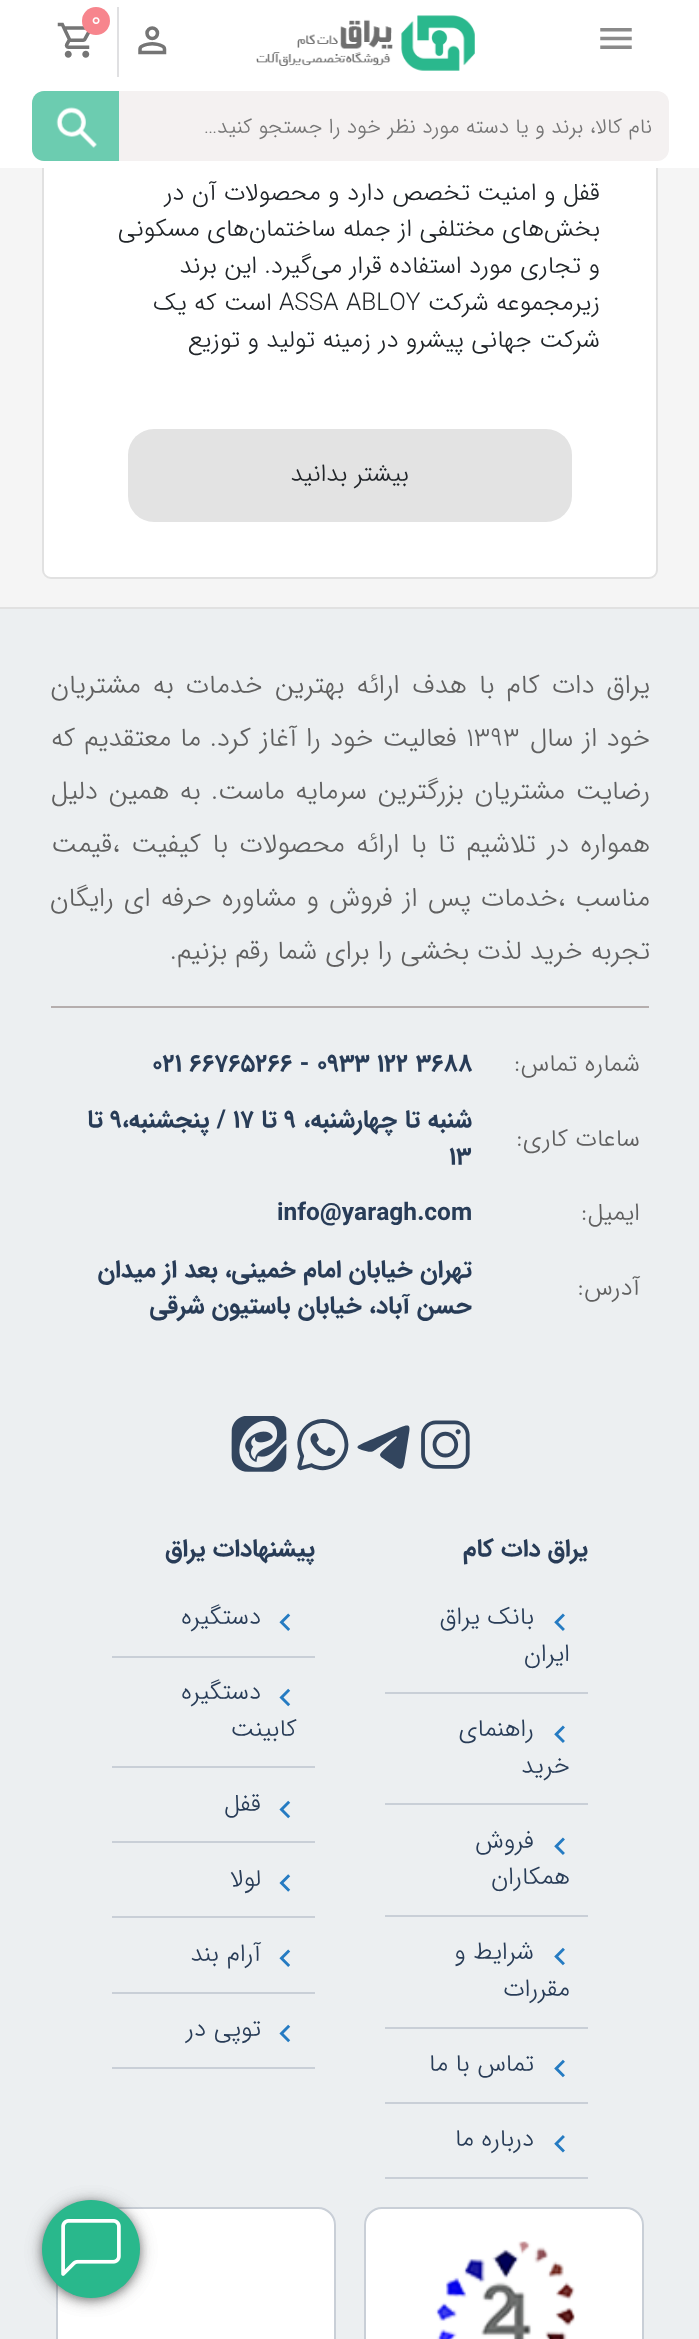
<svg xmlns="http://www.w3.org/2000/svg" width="699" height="2339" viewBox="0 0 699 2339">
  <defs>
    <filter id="blur1" x="-50%" y="-200%" width="200%" height="500%"><feGaussianBlur stdDeviation="9"/></filter>
    <filter id="blur2" x="-50%" y="-200%" width="200%" height="500%"><feGaussianBlur stdDeviation="5"/></filter>
  </defs>
  <rect width="100%" height="100%" fill="#f5f5f5"/>
  <rect x="43" y="-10" width="614" height="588" rx="8" fill="#ffffff" stroke="#e1e1e1" stroke-width="2"/>
  <rect x="0" y="0" width="699" height="168" fill="#ffffff"/>
  <image x="256" y="15" width="219" height="56" href="img1.png"/>
  <rect x="117" y="7" width="2" height="70" fill="#e0e0e2"/>
  <image x="57" y="22" width="34" height="36" href="img2.png"/>
  <circle cx="96" cy="21" r="14" fill="#f7858d"/>
  <text x="91" y="26" font-family="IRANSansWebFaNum" font-size="23" font-weight="300" fill="#ffffff">0</text>
  <image x="138" y="26" width="29" height="29" href="img3.png"/>
  <image x="600" y="28" width="32" height="21" href="img4.png"/>
  <rect x="32" y="91" width="637" height="70" rx="12" fill="#f4f1f1"/>
  <text x="652" y="133" font-family="IRANSansWebFaNum" font-size="21" font-weight="300" direction="rtl" fill="#757575">نام کالا، برند و یا دسته مورد نظر خود را جستجو کنید…</text>
  <path d="M44 91H119V161H44C37.5 161 32 155.5 32 149V103C32 96.5 37.5 91 44 91Z" fill="#6cccb0"/>
  <image x="56" y="107" width="41" height="41" href="img5.png"/>
  <text x="600" y="200" font-family="IRANSansWebFaNum" font-size="24.5" font-weight="300" direction="rtl" fill="#212529">قفل و امنیت تخصص دارد و محصولات آن در</text>
  <text x="600" y="236" font-family="IRANSansWebFaNum" font-size="24.5" font-weight="300" direction="rtl" fill="#212529">بخش‌های مختلفی از جمله ساختمان‌های مسکونی</text>
  <text x="600" y="273" font-family="IRANSansWebFaNum" font-size="24.5" font-weight="300" direction="rtl" fill="#212529">و تجاری مورد استفاده قرار می‌گیرد. این برند</text>
  <text x="600" y="310" font-family="IRANSansWebFaNum" font-size="24.5" font-weight="300" direction="rtl" fill="#212529">زیرمجموعه شرکت</text>
  <text x="279" y="310" font-family="IRANSansWebFaNum" font-size="24.5" font-weight="300" fill="#212529">ASSA ABLOY</text>
  <text x="272" y="310" font-family="IRANSansWebFaNum" font-size="24.5" font-weight="300" direction="rtl" fill="#212529">است که یک</text>
  <text x="600" y="347" font-family="IRANSansWebFaNum" font-size="24.5" font-weight="300" direction="rtl" fill="#212529">شرکت جهانی پیشرو در زمینه تولید و توزیع</text>
  <rect x="128" y="429" width="444" height="93" rx="26" fill="#e3e3e3"/>
  <text x="409" y="481" font-family="IRANSansWebFaNum" font-size="24.5" font-weight="300" direction="rtl" fill="#212529">بیشتر بدانید</text>
  <rect x="0" y="609" width="699" height="1730" fill="#eceff1"/>
  <rect x="0" y="607" width="699" height="2" fill="#e1e1e1"/>
  <rect x="51" y="1006" width="598" height="2" fill="#b5aeae"/>
  <text x="650" y="693" word-spacing="4" font-family="IRANSansWebFaNum" font-size="26.6" font-weight="300" direction="rtl" fill="#606060">یراق دات کام با هدف ارائه بهترین خدمات به مشتریان</text>
  <text x="650" y="746" word-spacing="1" font-family="IRANSansWebFaNum" font-size="26.6" font-weight="300" direction="rtl" fill="#606060">خود از سال</text>
  <text x="466" y="746" font-family="IRANSansWebFaNum" font-size="26.6" font-weight="300" fill="#606060">1393</text>
  <text x="457" y="746" word-spacing="1" font-family="IRANSansWebFaNum" font-size="26.6" font-weight="300" direction="rtl" fill="#606060">فعالیت خود را آغاز کرد. ما معتقدیم که</text>
  <text x="650" y="799" font-family="IRANSansWebFaNum" font-size="26.6" font-weight="300" direction="rtl" fill="#606060">رضایت</text>
  <text x="565" y="799" word-spacing="2.5" font-family="IRANSansWebFaNum" font-size="26.6" font-weight="300" direction="rtl" fill="#606060">مشتریان بزرگترین سرمایه ماست. به همین دلیل</text>
  <text x="650" y="852" word-spacing="3.5" font-family="IRANSansWebFaNum" font-size="26.6" font-weight="300" direction="rtl" fill="#606060">همواره در تلاشیم تا با ارائه محصولات با کیفیت ،قیمت</text>
  <text x="650" y="906" word-spacing="2" font-family="IRANSansWebFaNum" font-size="26.6" font-weight="300" direction="rtl" fill="#606060">مناسب ،خدمات</text>
  <text x="471" y="906" word-spacing="2" font-family="IRANSansWebFaNum" font-size="26.6" font-weight="300" direction="rtl" fill="#606060">پس از</text>
  <text x="393" y="906" word-spacing="2" font-family="IRANSansWebFaNum" font-size="26.6" font-weight="300" direction="rtl" fill="#606060">فروش و مشاوره حرفه ای رایگان</text>
  <text x="650" y="959" font-family="IRANSansWebFaNum" font-size="26.6" font-weight="300" direction="rtl" fill="#606060">تجربه خرید لذت بخشی را برای شما رقم بزنیم.</text>
  <text x="640" y="1071" font-family="IRANSansWebFaNum" font-size="24.5" font-weight="300" direction="rtl" fill="#606060">شماره تماس:</text>
  <text x="152" y="1071" font-family="IRANSansWebFaNum" font-size="24.5" font-weight="bold" fill="#283c57">021 66765266 - 0933 122 3688</text>
  <text x="640" y="1146" font-family="IRANSansWebFaNum" font-size="24.5" font-weight="300" direction="rtl" fill="#606060">ساعات کاری:</text>
  <text x="472" y="1127" font-family="IRANSansWebFaNum" font-size="24.5" font-weight="bold" direction="rtl" fill="#283c57">شنبه تا چهارشنبه،</text>
  <text x="284" y="1127" font-family="IRANSansWebFaNum" font-size="24.5" font-weight="bold" fill="#283c57">۹</text>
  <text x="277" y="1127" font-family="IRANSansWebFaNum" font-size="24.5" font-weight="bold" direction="rtl" fill="#283c57">تا</text>
  <text x="233" y="1127" font-family="IRANSansWebFaNum" font-size="24.5" font-weight="bold" fill="#283c57">۱۷</text>
  <text x="226" y="1127" font-family="IRANSansWebFaNum" font-size="24.5" font-weight="bold" direction="rtl" fill="#283c57">/ پنجشنبه،</text>
  <text x="110" y="1127" font-family="IRANSansWebFaNum" font-size="24.5" font-weight="bold" fill="#283c57">۹</text>
  <text x="103" y="1127" font-family="IRANSansWebFaNum" font-size="24.5" font-weight="bold" direction="rtl" fill="#283c57">تا</text>
  <text x="449" y="1164" font-family="IRANSansWebFaNum" font-size="24.5" font-weight="bold" fill="#283c57">۱۳</text>
  <text x="640" y="1220" font-family="IRANSansWebFaNum" font-size="24.5" font-weight="300" direction="rtl" fill="#606060">ایمیل:</text>
  <text x="277" y="1220" font-family="IRANSansWebFaNum" font-size="24.5" font-weight="bold" fill="#283c57">info@yaragh.com</text>
  <text x="640" y="1295" font-family="IRANSansWebFaNum" font-size="24.5" font-weight="300" direction="rtl" fill="#606060">آدرس:</text>
  <text x="472" y="1277" font-family="IRANSansWebFaNum" font-size="24.5" font-weight="bold" direction="rtl" fill="#283c57">تهران خیابان امام خمینی، بعد از میدان</text>
  <text x="472" y="1313" font-family="IRANSansWebFaNum" font-size="24.5" font-weight="bold" direction="rtl" fill="#283c57">حسن آباد، خیابان باستیون شرقی</text>
  <image x="421" y="1420" width="49" height="49" href="img6.png"/>
  <image x="357" y="1425" width="53" height="44" href="img7.png"/>
  <image x="297" y="1419" width="52" height="52" href="img8.png"/>
  <image x="231" y="1416" width="56" height="56" href="img9.png"/>
  <text x="588" y="1556" font-family="IRANSansWebFaNum" font-size="24.5" font-weight="bold" direction="rtl" fill="#283c57">یراق دات کام</text>
  <rect x="385" y="1692" width="203" height="2" fill="#c9cfd7"/>
  <image x="554" y="1613" width="11" height="18" href="img10.png"/>
  <text x="534" y="1624" font-family="IRANSansWebFaNum" font-size="24.5" font-weight="300" direction="rtl" fill="#283c57">بانک یراق</text>
  <text x="570" y="1661" font-family="IRANSansWebFaNum" font-size="24.5" font-weight="300" direction="rtl" fill="#283c57">ایران</text>
  <rect x="385" y="1803" width="203" height="2" fill="#c9cfd7"/>
  <image x="554" y="1725" width="11" height="18" href="img11.png"/>
  <text x="534" y="1736" font-family="IRANSansWebFaNum" font-size="24.5" font-weight="300" direction="rtl" fill="#283c57">راهنمای</text>
  <text x="570" y="1773" font-family="IRANSansWebFaNum" font-size="24.5" font-weight="300" direction="rtl" fill="#283c57">خرید</text>
  <rect x="385" y="1915" width="203" height="2" fill="#c9cfd7"/>
  <image x="554" y="1837" width="11" height="18" href="img10.png"/>
  <text x="534" y="1848" font-family="IRANSansWebFaNum" font-size="24.5" font-weight="300" direction="rtl" fill="#283c57">فروش</text>
  <text x="570" y="1884" font-family="IRANSansWebFaNum" font-size="24.5" font-weight="300" direction="rtl" fill="#283c57">همکاران</text>
  <rect x="385" y="2027" width="203" height="2" fill="#c9cfd7"/>
  <image x="554" y="1947" width="11" height="19" href="img12.png"/>
  <text x="534" y="1959" font-family="IRANSansWebFaNum" font-size="24.5" font-weight="300" direction="rtl" fill="#283c57">شرایط و</text>
  <text x="570" y="1996" font-family="IRANSansWebFaNum" font-size="24.5" font-weight="300" direction="rtl" fill="#283c57">مقررات</text>
  <rect x="385" y="2102" width="203" height="2" fill="#c9cfd7"/>
  <image x="554" y="2059" width="11" height="19" href="img12.png"/>
  <text x="534" y="2071" font-family="IRANSansWebFaNum" font-size="24.5" font-weight="300" direction="rtl" fill="#283c57">تماس با ما</text>
  <rect x="385" y="2177" width="203" height="2" fill="#c9cfd7"/>
  <image x="554" y="2135" width="11" height="18" href="img13.png"/>
  <text x="534" y="2146" font-family="IRANSansWebFaNum" font-size="24.5" font-weight="300" direction="rtl" fill="#283c57">درباره ما</text>
  <text x="315" y="1556" font-family="IRANSansWebFaNum" font-size="24.5" font-weight="bold" direction="rtl" fill="#283c57">پیشنهادات یراق</text>
  <rect x="112" y="1656" width="203" height="2" fill="#c9cfd7"/>
  <image x="279" y="1613" width="12" height="18" href="img14.png"/>
  <text x="261" y="1624" font-family="IRANSansWebFaNum" font-size="24.5" font-weight="300" direction="rtl" fill="#283c57">دستگیره</text>
  <rect x="112" y="1766" width="203" height="2" fill="#c9cfd7"/>
  <image x="279" y="1688" width="12" height="19" href="img15.png"/>
  <text x="261" y="1699" font-family="IRANSansWebFaNum" font-size="24.5" font-weight="300" direction="rtl" fill="#283c57">دستگیره</text>
  <text x="297" y="1736" font-family="IRANSansWebFaNum" font-size="24.5" font-weight="300" direction="rtl" fill="#283c57">کابینت</text>
  <rect x="112" y="1841" width="203" height="2" fill="#c9cfd7"/>
  <image x="279" y="1800" width="12" height="19" href="img15.png"/>
  <text x="261" y="1811" font-family="IRANSansWebFaNum" font-size="24.5" font-weight="300" direction="rtl" fill="#283c57">قفل</text>
  <rect x="112" y="1916" width="203" height="2" fill="#c9cfd7"/>
  <image x="279" y="1874" width="12" height="18" href="img16.png"/>
  <text x="261" y="1886" font-family="IRANSansWebFaNum" font-size="24.5" font-weight="300" direction="rtl" fill="#283c57">لولا</text>
  <rect x="112" y="1992" width="203" height="2" fill="#c9cfd7"/>
  <image x="279" y="1949" width="12" height="18" href="img14.png"/>
  <text x="261" y="1961" font-family="IRANSansWebFaNum" font-size="24.5" font-weight="300" direction="rtl" fill="#283c57">آرام</text>
  <text x="219" y="1961" font-family="IRANSansWebFaNum" font-size="24.5" font-weight="300" direction="rtl" fill="#283c57">بند</text>
  <rect x="112" y="2067" width="203" height="2" fill="#c9cfd7"/>
  <image x="279" y="2024" width="12" height="19" href="img15.png"/>
  <text x="261" y="2036" font-family="IRANSansWebFaNum" font-size="24.5" font-weight="300" direction="rtl" fill="#283c57">توپی</text>
  <text x="206" y="2036" font-family="IRANSansWebFaNum" font-size="24.5" font-weight="300" direction="rtl" fill="#283c57">در</text>
  <rect x="365" y="2208" width="278" height="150" rx="17" fill="#ffffff" stroke="#c9cfd7" stroke-width="2"/>
  <image x="435" y="2241" width="140" height="98" href="img17.png"/>
  <rect x="57" y="2208" width="278" height="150" rx="17" fill="#ffffff" stroke="#c9cfd7" stroke-width="2"/>
  <rect x="42" y="2202" width="98" height="98" rx="49" fill="#000000" fill-opacity="0.15" filter="url(#blur1)"/>
  <rect x="42" y="2202" width="98" height="98" rx="49" fill="#000000" fill-opacity="0.2" filter="url(#blur2)"/>
  <rect x="42" y="2202" width="98" height="98" rx="49" fill="#000000" fill-opacity="0.15" filter="url(#blur1)"/>
  <rect x="42" y="2202" width="98" height="98" rx="49" fill="#000000" fill-opacity="0.2" filter="url(#blur2)"/>
  <circle cx="91" cy="2249" r="49" fill="#29b88c"/>
  <image x="61" y="2219" width="60" height="57" href="img18.png"/>
</svg>
